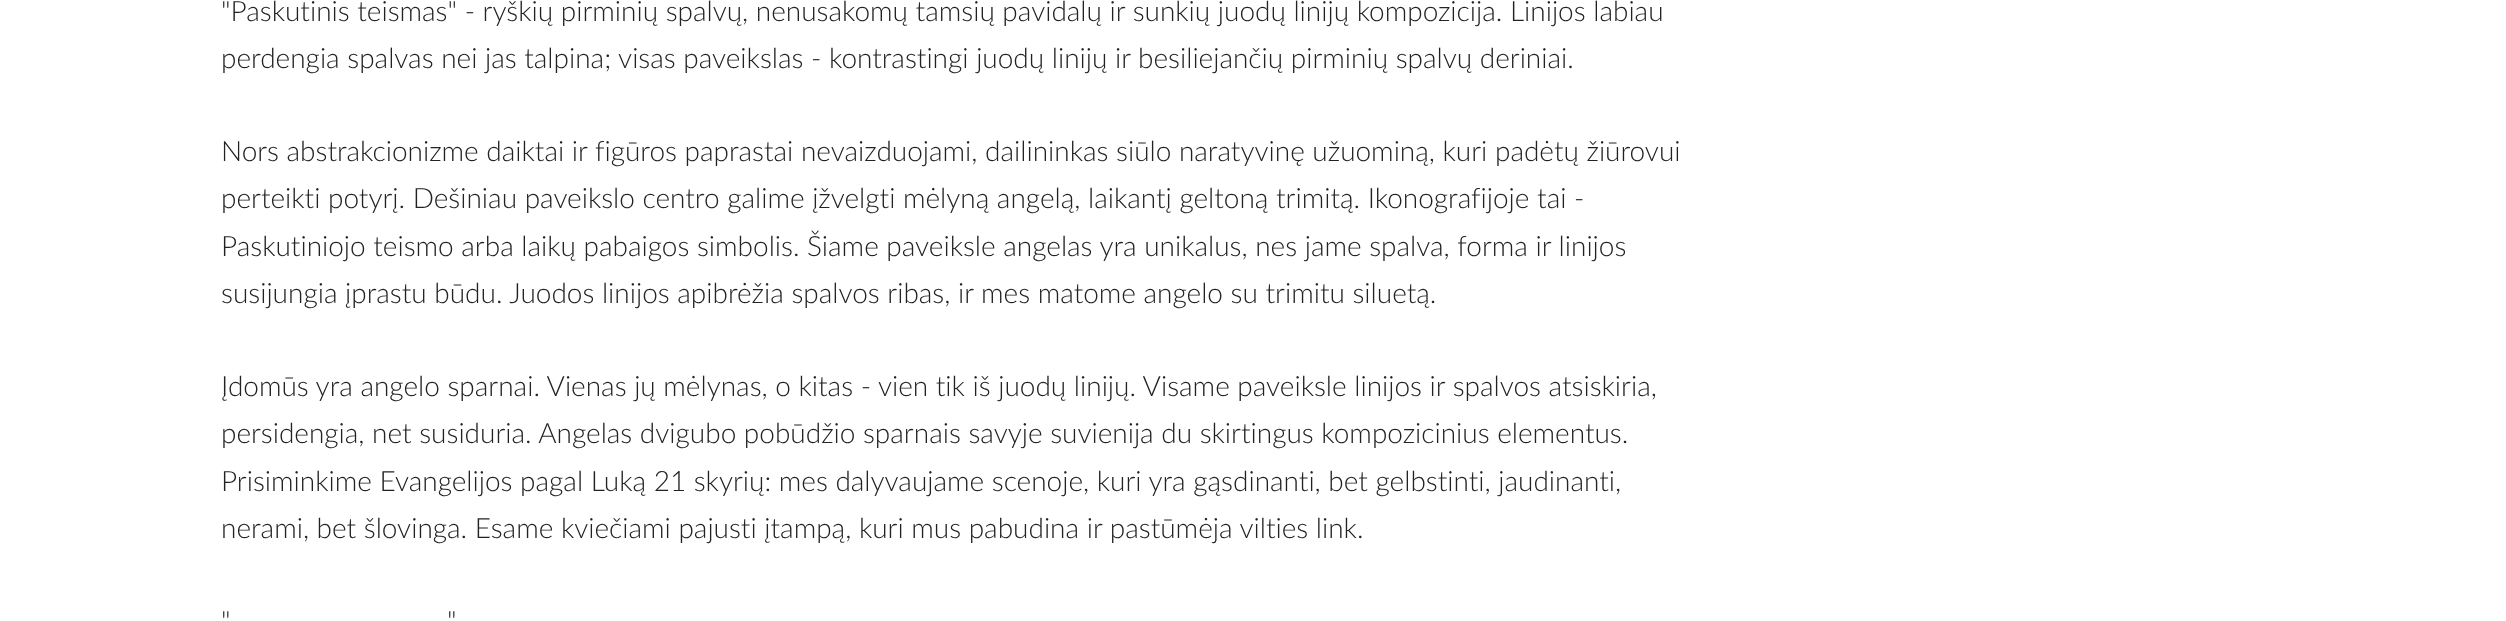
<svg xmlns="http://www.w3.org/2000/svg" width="2506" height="621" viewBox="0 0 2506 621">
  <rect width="100%" height="100%" fill="#ffffff"/>
  <text x="221" y="21" font-family="Lato" font-size="28" font-weight="300" fill="#222222">"Paskutinis teismas" - ryškių pirminių spalvų, nenusakomų tamsių pavidalų ir sunkių juodų linijų kompozicija. Linijos labiau</text>
  <text x="221" y="68" font-family="Lato" font-size="28" font-weight="300" fill="#222222">perdengia spalvas nei jas talpina; visas paveikslas - kontrastingi juodų linijų ir besiliejančių pirminių spalvų deriniai.</text>
  <text x="221" y="161" font-family="Lato" font-size="28" font-weight="300" fill="#222222">Nors abstrakcionizme daiktai ir figūros paprastai nevaizduojami, dailininkas siūlo naratyvinę užuominą, kuri padėtų žiūrovui</text>
  <text x="221" y="208" font-family="Lato" font-size="28" font-weight="300" fill="#222222">perteikti potyrį. Dešiniau paveikslo centro galime įžvelgti mėlyną angelą, laikantį geltoną trimitą. Ikonografijoje tai -</text>
  <text x="221" y="256" font-family="Lato" font-size="28" font-weight="300" fill="#222222">Paskutiniojo teismo arba laikų pabaigos simbolis. Šiame paveiksle angelas yra unikalus, nes jame spalva, forma ir linijos</text>
  <text x="221" y="303" font-family="Lato" font-size="28" font-weight="300" fill="#222222">susijungia įprastu būdu. Juodos linijos apibrėžia spalvos ribas, ir mes matome angelo su trimitu siluetą.</text>
  <text x="221" y="396" font-family="Lato" font-size="28" font-weight="300" fill="#222222">Įdomūs yra angelo sparnai. Vienas jų mėlynas, o kitas - vien tik iš juodų linijų. Visame paveiksle linijos ir spalvos atsiskiria,</text>
  <text x="221" y="443" font-family="Lato" font-size="28" font-weight="300" fill="#222222">persidengia, net susiduria. Angelas dvigubo pobūdžio sparnais savyje suvienija du skirtingus kompozicinius elementus.</text>
  <text x="221" y="491" font-family="Lato" font-size="28" font-weight="300" fill="#222222">Prisiminkime Evangelijos pagal Luką 21 skyrių: mes dalyvaujame scenoje, kuri yra gąsdinanti, bet gelbstinti, jaudinanti,</text>
  <text x="221" y="538" font-family="Lato" font-size="28" font-weight="300" fill="#222222">nerami, bet šlovinga. Esame kviečiami pajusti įtampą, kuri mus pabudina ir pastūmėja vilties link.</text>
  <text x="221" y="631" font-family="Lato" font-size="28" font-weight="300" fill="#222222">"</text>
  <text x="447" y="631" font-family="Lato" font-size="28" font-weight="300" fill="#222222">"</text>
</svg>
